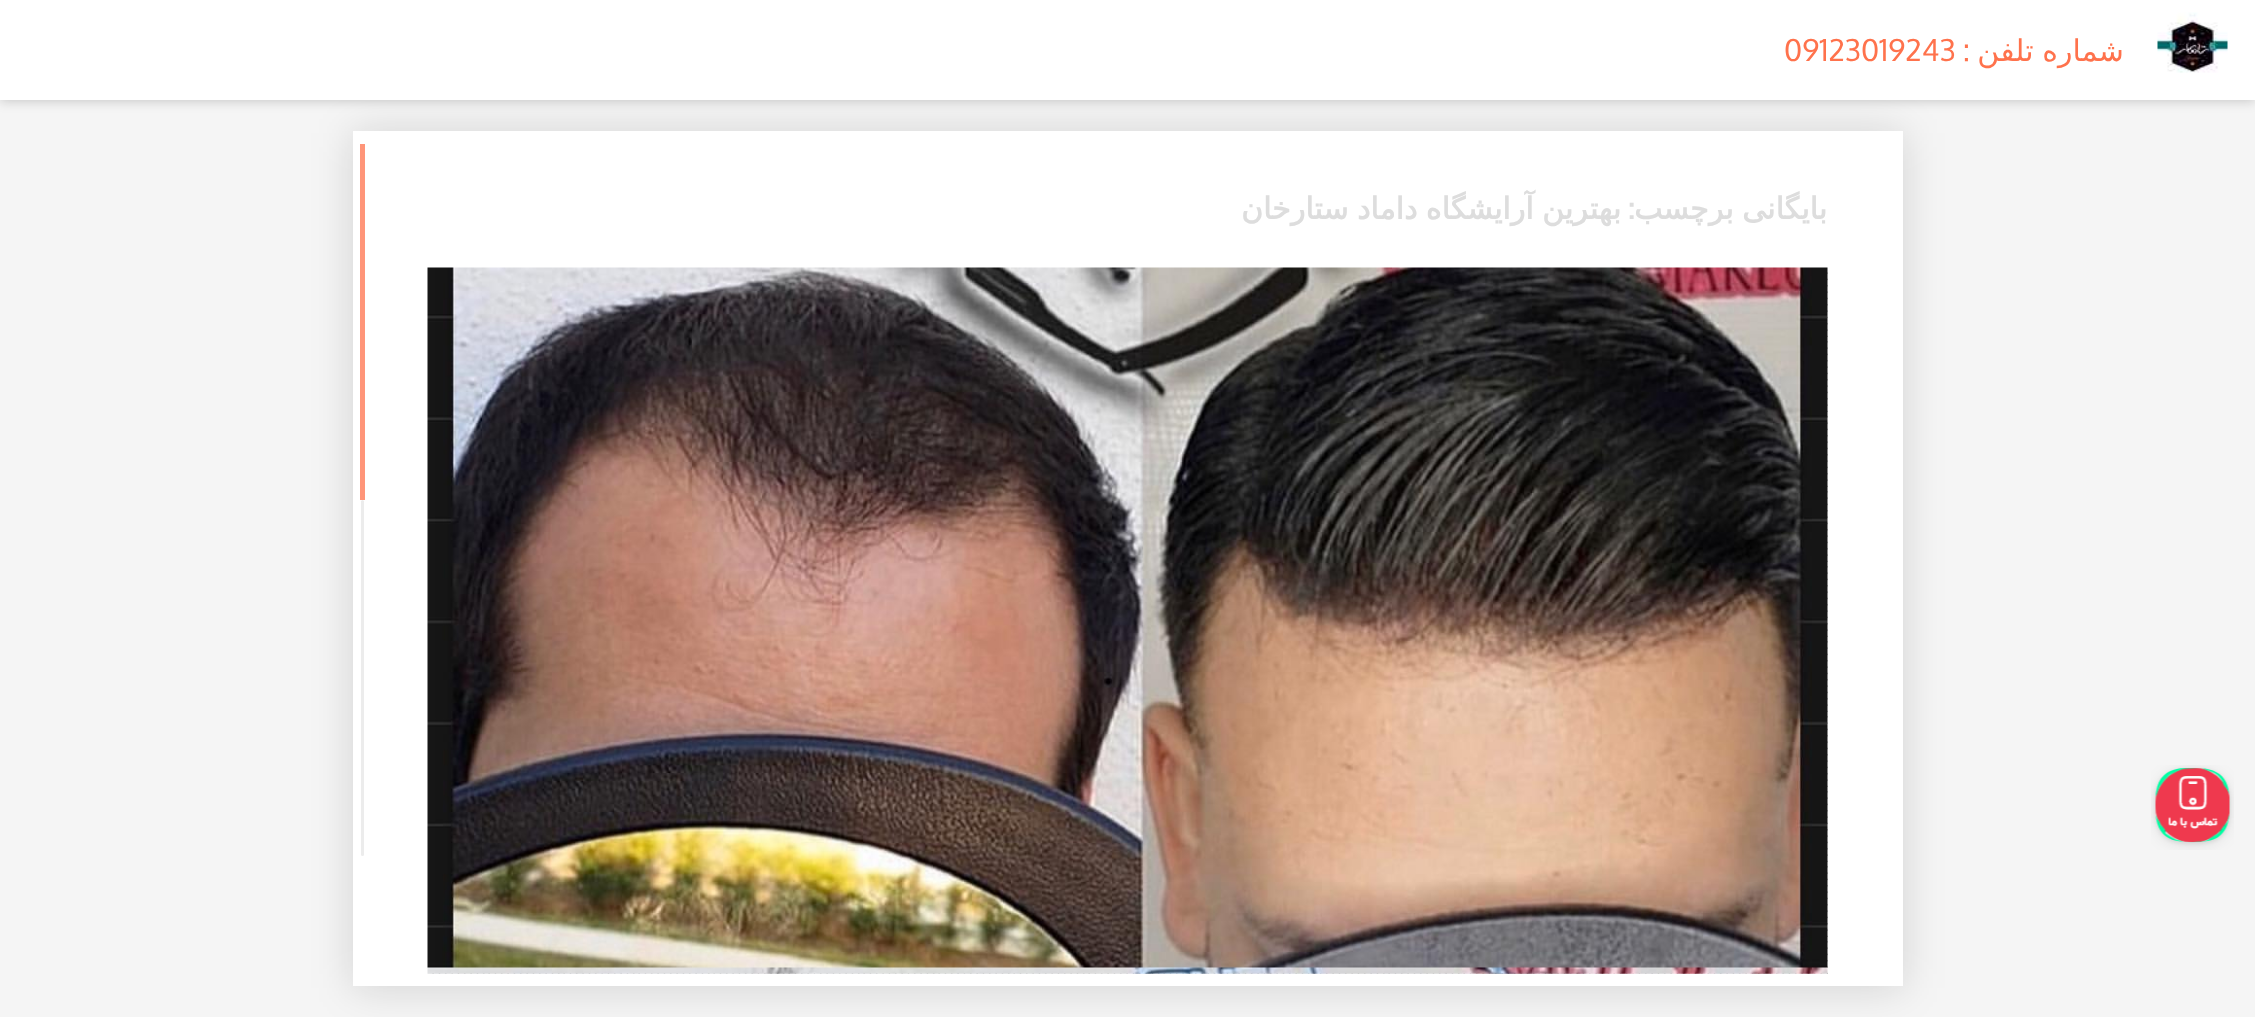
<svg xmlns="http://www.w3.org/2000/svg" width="2255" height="1017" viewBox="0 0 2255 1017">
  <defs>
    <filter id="blur1" x="-50%" y="-200%" width="200%" height="500%"><feGaussianBlur stdDeviation="6"/></filter>
    <filter id="blur2" x="-50%" y="-200%" width="200%" height="500%"><feGaussianBlur stdDeviation="20.5"/></filter>
  </defs>
  <rect width="100%" height="100%" fill="#f5f5f5"/>
  <rect x="0" y="1" width="2255" height="100" fill="#000000" fill-opacity="0.2" filter="url(#blur1)"/>
  <rect x="353" y="133" width="1550" height="855" fill="#000000" fill-opacity="0.15" filter="url(#blur2)"/>
  <rect x="0" y="0" width="2255" height="100" fill="#ffffff"/>
  <image x="2157" y="12" width="71" height="61" href="img1.png"/>
  <text x="2124" y="61" word-spacing="-1" font-family="DejaVu Sans" font-size="30" direction="rtl" fill="#ff724c">شماره تلفن</text>
  <text x="1970" y="61" font-family="Oxygen" font-size="30" direction="rtl" fill="#ff724c">:</text>
  <text x="1784" y="61" font-family="Oxygen" font-size="30" fill="#ff724c">09123019243</text>
  <rect x="353" y="131" width="1550" height="855" fill="#ffffff"/>
  <text x="1827" y="219" word-spacing="-1" font-family="DejaVu Sans" font-size="30" font-weight="bold" direction="rtl" fill="#dddddd">بایگانی برچسب</text>
  <text x="1635" y="219" font-family="Oxygen" font-size="30" font-weight="bold" direction="rtl" fill="#dddddd">:</text>
  <text x="1621" y="219" word-spacing="-1" font-family="DejaVu Sans" font-size="30" font-weight="bold" direction="rtl" fill="#dddddd">بهترین آرایشگاه داماد ستارخان</text>
  <rect x="432" y="272" width="1396" height="702" fill="#b2b2b2"/>
  <image x="428" y="268" width="1400" height="706" href="img2.png"/>
  <image x="427" y="267" width="1401" height="707" href="img3.png"/>
  <rect x="360" y="144" width="5" height="356" fill="#ff9579"/>
  <rect x="361" y="500" width="3" height="356" rx="1.5" fill="#ececec"/>
  <image x="2151" y="765" width="83" height="85" href="img4.png"/>
</svg>
